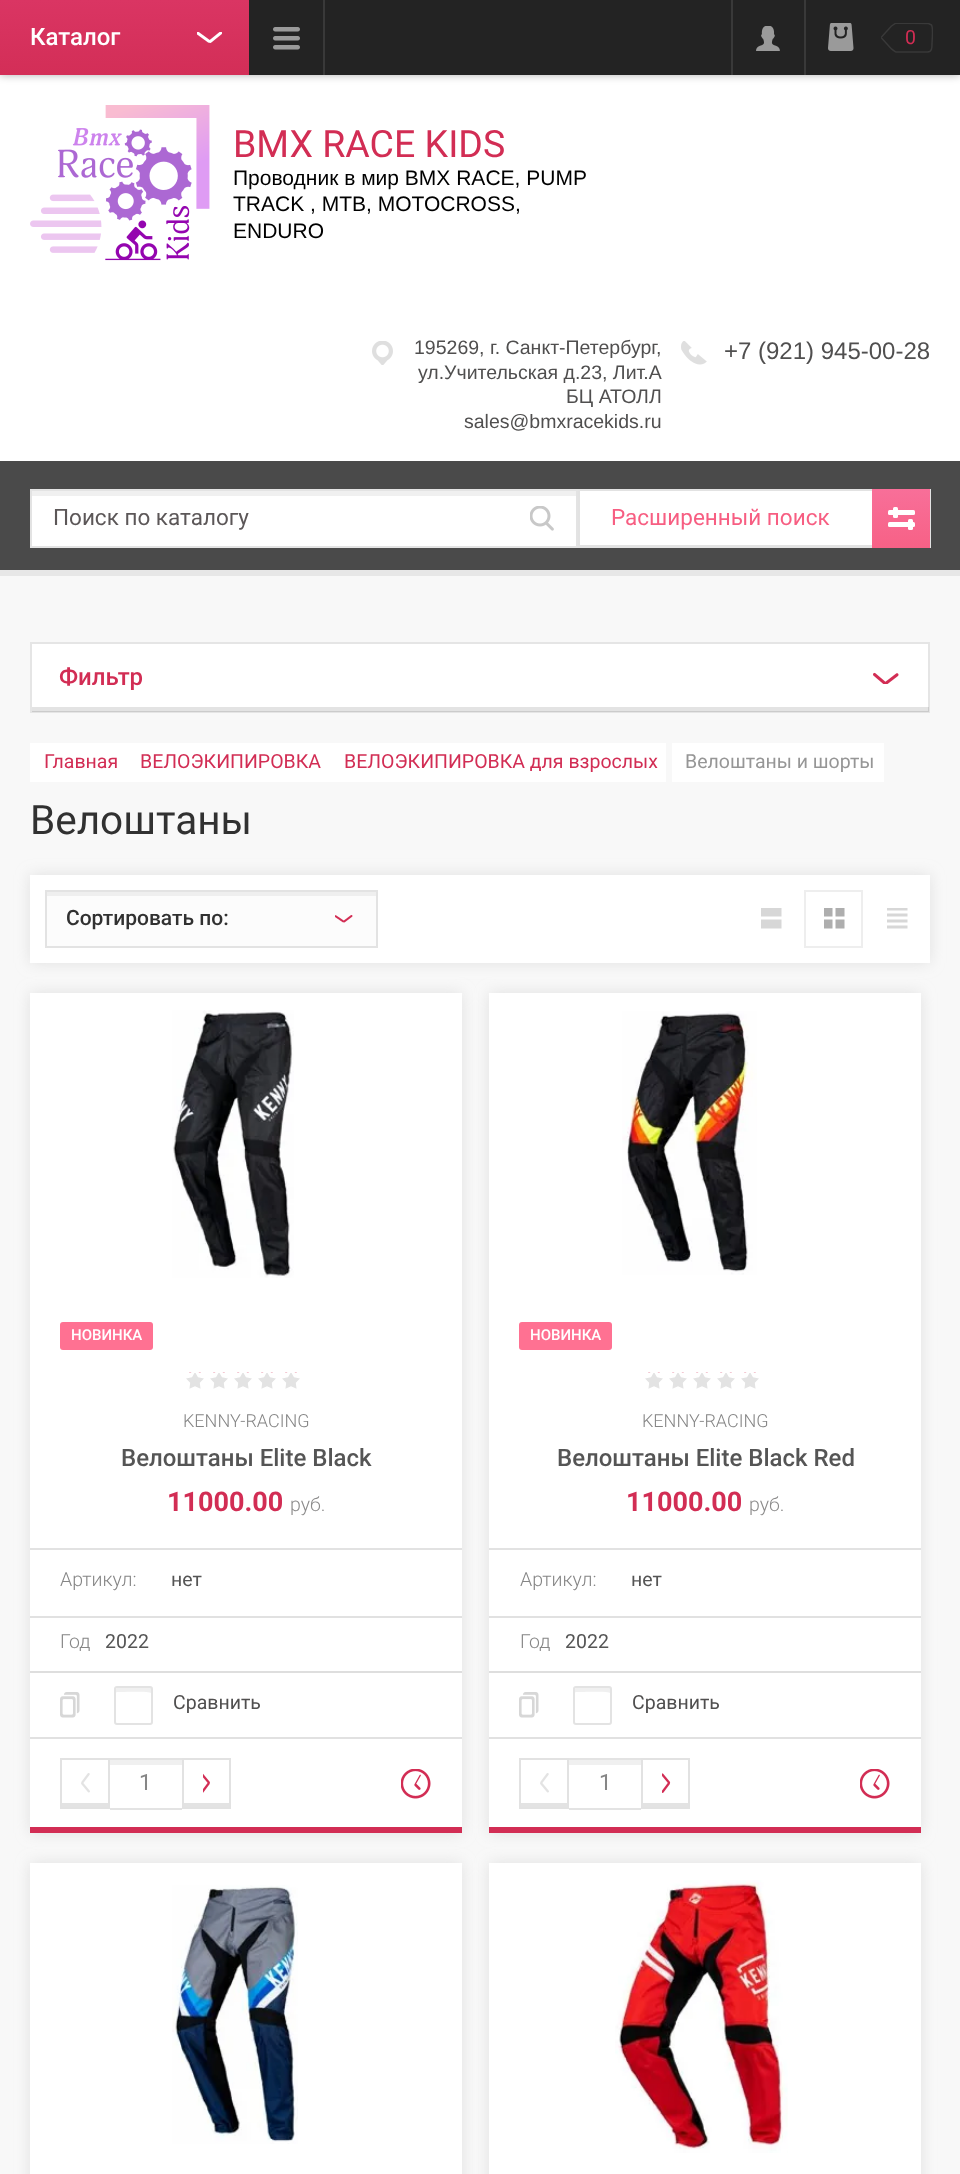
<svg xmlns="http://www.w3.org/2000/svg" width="960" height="2174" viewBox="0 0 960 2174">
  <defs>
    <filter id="blur1" x="-50%" y="-200%" width="200%" height="500%"><feGaussianBlur stdDeviation="4"/></filter>
    <linearGradient id="g1" gradientUnits="userSpaceOnUse" x1="125" y1="75" x2="125" y2="0"><stop offset="0" stop-color="#d32e57"/><stop offset="1" stop-color="#da3563"/></linearGradient>
    <clipPath id="clip1"><rect x="881" y="23" width="52" height="30"/></clipPath>
    <linearGradient id="g2" gradientUnits="userSpaceOnUse" x1="901" y1="548" x2="901" y2="489"><stop offset="0" stop-color="#f76186"/><stop offset="1" stop-color="#f86f99"/></linearGradient>
    <filter id="blur2" x="-50%" y="-200%" width="200%" height="500%"><feGaussianBlur stdDeviation="7.5"/></filter>
  </defs>
  <rect width="100%" height="100%" fill="#ffffff"/>
  <rect x="0" y="0" width="960" height="75" fill="#000000" fill-opacity="0.31" filter="url(#blur1)"/>
  <rect x="249" y="0" width="711" height="75" fill="#232323"/>
  <rect x="0" y="0" width="249" height="75" fill="url(#g1)"/>
  <text x="30" y="45" font-family="Roboto" font-size="24" font-weight="500" fill="#ffffff">Каталог</text>
  <image x="197" y="32" width="25" height="11" href="img1.png"/>
  <image x="273" y="27" width="27" height="23" href="img2.png"/>
  <rect x="323" y="0" width="2" height="75" fill="#393939"/>
  <rect x="731" y="0" width="2" height="75" fill="#393939"/>
  <rect x="804" y="0" width="2" height="75" fill="#393939"/>
  <image x="756" y="26" width="24" height="25" href="img3.png"/>
  <image x="828" y="23" width="26" height="28" href="img4.png"/>
  <g clip-path="url(#clip1)">
    <path d="M927.5 52H896C895 52 892 49 891.5 49L881 37.5L891.5 26L896 23L928.5 23.5L931.5 25C933.5 28 932 40 932 44C932 47.5 932 52 927.5 52Z" fill="none" stroke="#393939" stroke-width="1.5" stroke-linejoin="round"/>
  </g>
  <text x="905" y="44" font-family="Roboto" font-size="19.5" fill="#d22d54">0</text>
  <image x="30" y="105" width="180" height="156" href="img5.png"/>
  <text x="233" y="157" font-family="Roboto" font-size="37.5" fill="#d22d54">BMX RACE KIDS</text>
  <text x="233" y="185" font-family="Liberation Sans" font-size="21" fill="#000000">Проводник в мир BMX RACE, PUMP</text>
  <text x="233" y="211" font-family="Liberation Sans" font-size="21" fill="#000000">TRACK , MTB, MOTOCROSS,</text>
  <text x="233" y="238" font-family="Liberation Sans" font-size="21" fill="#000000">ENDURO</text>
  <image x="372" y="341" width="21" height="24" href="img6.png"/>
  <text x="414" y="354" font-family="Liberation Sans" font-size="19.5" fill="#504f4f">195269, г. Санкт-Петербург,</text>
  <text x="418" y="379" font-family="Liberation Sans" font-size="19.5" fill="#504f4f">ул.Учительская д.23, Лит.А</text>
  <text x="566" y="403" font-family="Liberation Sans" font-size="19.5" fill="#504f4f">БЦ АТОЛЛ</text>
  <text x="464" y="428" font-family="Liberation Sans" font-size="19.5" fill="#504f4f">sales@bmxracekids.ru</text>
  <image x="681" y="341" width="26" height="24" href="img7.png"/>
  <text x="724" y="359" font-family="Liberation Sans" font-size="24" fill="#504f4f">+7 (921) 945-00-28</text>
  <rect x="0" y="461" width="960" height="109" fill="#4a4a4a"/>
  <rect x="32" y="496" width="544" height="50" fill="#ffffff"/>
  <rect x="32" y="491" width="544" height="5" fill="#f0f0f0"/>
  <rect x="31" y="490" width="546" height="57" fill="none" stroke="#e3e3e3" stroke-width="2"/>
  <text x="53" y="525" font-family="Roboto" font-size="22.5" fill="#5c5758">Поиск по каталогу</text>
  <image x="530" y="506" width="24" height="25" href="img8.png"/>
  <rect x="580" y="491" width="292" height="54" fill="#ffffff"/>
  <rect x="578" y="489" width="294" height="2" fill="#e2e2e2"/>
  <rect x="930" y="489" width="1" height="59" fill="#e2e2e2"/>
  <rect x="578" y="545" width="294" height="3" fill="#e2e2e2"/>
  <rect x="578" y="489" width="2" height="59" fill="#e2e2e2"/>
  <text x="611" y="525" font-family="Roboto" font-size="22.5" fill="#f75e82">Расширенный поиск</text>
  <rect x="872" y="489" width="58" height="59" fill="url(#g2)"/>
  <rect x="888" y="510" width="27" height="5" rx="1.5" fill="#ffffff"/>
  <rect x="893" y="507" width="5" height="11" rx="1.5" fill="#ffffff"/>
  <rect x="888" y="522" width="27" height="5" rx="1.5" fill="#ffffff"/>
  <rect x="908" y="519" width="5" height="11" rx="1.5" fill="#ffffff"/>
  <rect x="0" y="576" width="960" height="1598" fill="#f8f8f8"/>
  <rect x="0" y="570" width="960" height="6" fill="#e7e7e7"/>
  <rect x="30" y="642" width="900" height="71" fill="#ffffff"/>
  <rect x="32" y="707" width="897" height="5" fill="#e3e3e3"/>
  <rect x="31" y="643" width="898" height="69" fill="none" stroke="#000000" stroke-opacity="0.1" stroke-width="2"/>
  <text x="59" y="685" font-family="Roboto" font-size="24" font-weight="500" fill="#d22d54">Фильтр</text>
  <image x="873" y="672" width="26" height="12" href="img9.png"/>
  <rect x="30" y="743" width="636" height="39" fill="#ffffff"/>
  <text x="44" y="768" font-family="Roboto" font-size="19.5" fill="#d22d54">Главная</text>
  <text x="140" y="768" font-family="Roboto" font-size="19.5" fill="#d22d54">ВЕЛОЭКИПИРОВКА</text>
  <text x="344" y="768" font-family="Roboto" font-size="19.5" fill="#d22d54">ВЕЛОЭКИПИРОВКА для взрослых</text>
  <rect x="672" y="743" width="212" height="39" fill="#ffffff"/>
  <text x="685" y="768" font-family="Roboto" font-size="19.5" fill="#969696">Велоштаны и шорты</text>
  <text x="30" y="834" font-family="Roboto" font-size="40.5" fill="#313131">Велоштаны</text>
  <rect x="30" y="875" width="900" height="88" fill="#c3c3c3" fill-opacity="0.45" filter="url(#blur2)"/>
  <rect x="30" y="875" width="900" height="88" fill="#ffffff"/>
  <rect x="47" y="896" width="329" height="50" fill="#fcfcfc"/>
  <rect x="47" y="892" width="330" height="4" fill="#efefef"/>
  <rect x="46" y="891" width="331" height="56" fill="none" stroke="#e3e3e3" stroke-width="2"/>
  <text x="66" y="925" font-family="Roboto" font-size="21" font-weight="500" fill="#313131">Сортировать по:</text>
  <image x="335" y="915" width="18" height="8" href="img10.png"/>
  <image x="761" y="908" width="21" height="21" href="img11.png"/>
  <image x="824" y="908" width="21" height="21" href="img12.png"/>
  <rect x="805" y="891" width="57" height="56" fill="none" stroke="#eeeeee" stroke-width="2"/>
  <image x="887" y="908" width="21" height="21" href="img13.png"/>
  <rect x="30" y="993" width="432" height="840" fill="#c3c3c3" fill-opacity="0.45" filter="url(#blur2)"/>
  <rect x="30" y="993" width="432" height="834" fill="#ffffff"/>
  <rect x="30" y="1827" width="432" height="6" fill="#d22d54"/>
  <image x="172" y="1010" width="122" height="268" href="img14.png"/>
  <rect x="60" y="1322" width="93" height="28" rx="3" fill="#ff7192"/>
  <text x="71" y="1340" font-family="Roboto" font-size="15" font-weight="500" fill="#ffffff">НОВИНКА</text>
  <image x="186" y="1372" width="114" height="17" href="img15.png"/>
  <text x="183" y="1427" font-family="Roboto" font-size="18" font-weight="300" fill="#868686">KENNY-RACING</text>
  <text x="121" y="1466" font-family="Roboto" font-size="24" font-weight="500" fill="#555555">Велоштаны Elite Black</text>
  <text x="167" y="1511" font-family="Roboto" font-size="27" font-weight="bold" fill="#d22d54">11000.00</text>
  <text x="290" y="1511" font-family="Roboto" font-size="19.5" font-weight="300" fill="#8c8b8b">руб.</text>
  <rect x="30" y="1548" width="432" height="2" fill="#e2e2e2"/>
  <text x="60" y="1586" font-family="Roboto" font-size="19.5" font-weight="300" fill="#868686">Артикул:</text>
  <text x="171" y="1586" font-family="Roboto" font-size="19.5" fill="#555555">нет</text>
  <rect x="30" y="1616" width="432" height="2" fill="#e1e1e1"/>
  <text x="60" y="1648" font-family="Roboto" font-size="19.5" font-weight="300" fill="#868686">Год</text>
  <text x="105" y="1648" font-family="Roboto" font-size="19.5" fill="#555555">2022</text>
  <image x="60" y="1692" width="20" height="26" href="img16.png"/>
  <rect x="30" y="1671" width="432" height="2" fill="#dedede"/>
  <path d="M117 1692C123 1692 150 1691 151 1693L152 1710V1689.5C152 1688.5 151.5 1688 150.5 1688H117.5C116.5 1688 116 1688.5 116 1689.5V1692.5Z" fill="#f0f0f0"/>
  <rect x="115" y="1687" width="37" height="37" rx="2" fill="none" stroke="#e3e3e3" stroke-width="2"/>
  <text x="173" y="1709" font-family="Roboto" font-size="19.5" fill="#504f4f">Сравнить</text>
  <rect x="30" y="1737" width="432" height="2" fill="#e1e1e1"/>
  <rect x="62" y="1803" width="46" height="4" fill="#e3e3e3"/>
  <rect x="61" y="1759" width="48" height="49" fill="none" stroke="#e2e2e2" stroke-width="2"/>
  <image x="81" y="1773" width="9" height="20" href="img17.png"/>
  <rect x="110" y="1760" width="72" height="5" fill="#f0f0f0"/>
  <rect x="110" y="1758" width="72" height="2" fill="#e3e3e3"/>
  <rect x="110" y="1808" width="72" height="2" fill="#e3e3e3"/>
  <text x="139" y="1790" font-family="Roboto" font-size="22.5" fill="#868686">1</text>
  <rect x="183" y="1803" width="47" height="4" fill="#e3e3e3"/>
  <rect x="183" y="1759" width="47" height="49" fill="none" stroke="#e2e2e2" stroke-width="2"/>
  <image x="203" y="1773" width="7" height="20" href="img18.png"/>
  <image x="401" y="1769" width="30" height="30" href="img19.png"/>
  <rect x="489" y="993" width="432" height="840" fill="#c3c3c3" fill-opacity="0.45" filter="url(#blur2)"/>
  <rect x="489" y="993" width="432" height="834" fill="#ffffff"/>
  <rect x="489" y="1827" width="432" height="6" fill="#d22d54"/>
  <image x="622" y="1011" width="135" height="264" href="img20.png"/>
  <rect x="519" y="1322" width="93" height="28" rx="3" fill="#ff7192"/>
  <text x="530" y="1340" font-family="Roboto" font-size="15" font-weight="500" fill="#ffffff">НОВИНКА</text>
  <image x="645" y="1372" width="114" height="17" href="img15.png"/>
  <text x="642" y="1427" font-family="Roboto" font-size="18" font-weight="300" fill="#868686">KENNY-RACING</text>
  <text x="557" y="1466" font-family="Roboto" font-size="24" font-weight="500" fill="#555555">Велоштаны Elite Black Red</text>
  <text x="626" y="1511" font-family="Roboto" font-size="27" font-weight="bold" fill="#d22d54">11000.00</text>
  <text x="749" y="1511" font-family="Roboto" font-size="19.5" font-weight="300" fill="#8c8b8b">руб.</text>
  <rect x="489" y="1548" width="432" height="2" fill="#e2e2e2"/>
  <text x="520" y="1586" font-family="Roboto" font-size="19.5" font-weight="300" fill="#868686">Артикул:</text>
  <text x="631" y="1586" font-family="Roboto" font-size="19.5" fill="#555555">нет</text>
  <rect x="489" y="1616" width="432" height="2" fill="#e1e1e1"/>
  <text x="520" y="1648" font-family="Roboto" font-size="19.5" font-weight="300" fill="#868686">Год</text>
  <text x="565" y="1648" font-family="Roboto" font-size="19.5" fill="#555555">2022</text>
  <image x="519" y="1692" width="20" height="26" href="img16.png"/>
  <rect x="489" y="1671" width="432" height="2" fill="#dedede"/>
  <path d="M576 1692C582.5 1692 609.5 1691 610 1693L610.5 1723.5L611 1722.5V1689.5C611 1688.5 610.5 1688 609.5 1688H576.5C575.5 1688 575 1688.5 575 1689.5V1692.5Z" fill="#f0f0f0"/>
  <rect x="574" y="1687" width="37" height="37" rx="2" fill="none" stroke="#e3e3e3" stroke-width="2"/>
  <text x="632" y="1709" font-family="Roboto" font-size="19.5" fill="#504f4f">Сравнить</text>
  <rect x="489" y="1737" width="432" height="2" fill="#e1e1e1"/>
  <rect x="521" y="1803" width="46" height="4" fill="#e3e3e3"/>
  <rect x="520" y="1759" width="48" height="49" fill="none" stroke="#e2e2e2" stroke-width="2"/>
  <image x="540" y="1773" width="9" height="20" href="img17.png"/>
  <rect x="569" y="1760" width="72" height="5" fill="#f0f0f0"/>
  <rect x="569" y="1758" width="72" height="2" fill="#e3e3e3"/>
  <rect x="569" y="1808" width="72" height="2" fill="#e3e3e3"/>
  <text x="599" y="1790" font-family="Roboto" font-size="22.5" fill="#868686">1</text>
  <rect x="642" y="1803" width="47" height="4" fill="#e3e3e3"/>
  <rect x="642" y="1759" width="47" height="49" fill="none" stroke="#e2e2e2" stroke-width="2"/>
  <image x="662" y="1773" width="9" height="20" href="img21.png"/>
  <image x="860" y="1769" width="30" height="30" href="img19.png"/>
  <rect x="30" y="1863" width="432" height="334" fill="#c3c3c3" fill-opacity="0.45" filter="url(#blur2)"/>
  <rect x="30" y="1863" width="432" height="311" fill="#ffffff"/>
  <image x="172" y="1885" width="126" height="259" href="img22.png"/>
  <rect x="489" y="1863" width="432" height="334" fill="#c3c3c3" fill-opacity="0.45" filter="url(#blur2)"/>
  <rect x="489" y="1863" width="432" height="311" fill="#ffffff"/>
  <image x="615" y="1880" width="173" height="273" href="img23.png"/>
</svg>
